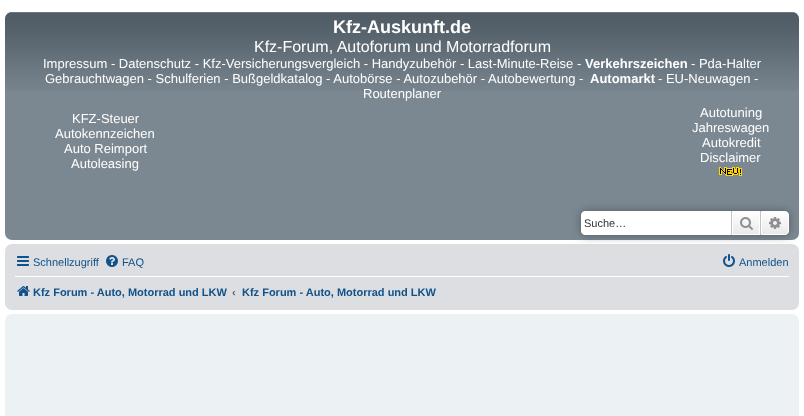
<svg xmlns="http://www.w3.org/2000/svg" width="804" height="416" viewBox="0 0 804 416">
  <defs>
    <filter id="blur1" x="-50%" y="-200%" width="200%" height="500%"><feGaussianBlur stdDeviation="5"/></filter>
    <linearGradient id="g1" gradientUnits="userSpaceOnUse" x1="746" y1="211" x2="746" y2="235"><stop offset="0" stop-color="#ffffff"/><stop offset="1" stop-color="#e9e9e9"/></linearGradient>
    <linearGradient id="g2" gradientUnits="userSpaceOnUse" x1="775" y1="211" x2="775" y2="235"><stop offset="0" stop-color="#ffffff"/><stop offset="1" stop-color="#e9e9e9"/></linearGradient>
  </defs>
  <rect width="100%" height="100%" fill="#ffffff"/>
  <rect x="5" y="12" width="794" height="228" rx="7" fill="#7c8891"/>
  <image x="5" y="12" width="794" height="79" href="img1.png"/>
  <text x="333" y="33" font-family="Liberation Sans" font-size="18" font-weight="bold" fill="#ffffff">Kfz-Auskunft.de</text>
  <text x="254" y="52" font-family="Liberation Sans" font-size="16" fill="#ffffff">Kfz-Forum, Autoforum und Motorradforum</text>
  <text x="43" y="68" font-family="Liberation Sans" font-size="13" fill="#ffffff">Impressum - Datenschutz - Kfz-Versicherungsvergleich - Handyzubehör - Last-Minute-Reise -</text>
  <text x="585" y="68" font-family="Liberation Sans" font-size="13" font-weight="bold" fill="#ffffff">Verkehrszeichen</text>
  <text x="691" y="68" font-family="Liberation Sans" font-size="13" fill="#ffffff">- Pda-Halter</text>
  <text x="45" y="83" font-family="Liberation Sans" font-size="13" fill="#ffffff">Gebrauchtwagen - Schulferien - Bußgeldkatalog - Autobörse - Autozubehör - Autobewertung -</text>
  <text x="590" y="83" font-family="Liberation Sans" font-size="13" font-weight="bold" fill="#ffffff">Automarkt</text>
  <text x="658" y="83" font-family="Liberation Sans" font-size="13" fill="#ffffff">- EU-Neuwagen -</text>
  <text x="363" y="98" font-family="Liberation Sans" font-size="13" fill="#ffffff">Routenplaner</text>
  <text x="72" y="123" font-family="Liberation Sans" font-size="13" fill="#ffffff">KFZ-Steuer</text>
  <text x="55" y="138" font-family="Liberation Sans" font-size="13" fill="#ffffff">Autokennzeichen</text>
  <text x="64" y="153" font-family="Liberation Sans" font-size="13" fill="#ffffff">Auto Reimport</text>
  <text x="71" y="168" font-family="Liberation Sans" font-size="13" fill="#ffffff">Autoleasing</text>
  <text x="700" y="117" font-family="Liberation Sans" font-size="13" fill="#ffffff">Autotuning</text>
  <text x="692" y="132" font-family="Liberation Sans" font-size="13" fill="#ffffff">Jahreswagen</text>
  <text x="702" y="147" font-family="Liberation Sans" font-size="13" fill="#ffffff">Autokredit</text>
  <text x="700" y="162" font-family="Liberation Sans" font-size="13" fill="#ffffff">Disclaimer</text>
  <image x="719" y="167" width="23" height="9" href="img2.png"/>
  <rect x="5" y="244" width="794" height="66" rx="7" fill="#dcdee2"/>
  <rect x="581" y="211" width="208" height="24" rx="4" fill="#505c65" filter="url(#blur1)"/>
  <path d="M585 211H731V235H585C583 235 581 233 581 231V215C581 213 583 211 585 211Z" fill="#ffffff"/>
  <text x="584" y="227" font-family="Liberation Sans" font-size="11" fill="#333333">Suche…</text>
  <rect x="733" y="212" width="26" height="22" fill="url(#g1)"/>
  <rect x="732.5" y="211.5" width="27" height="23" fill="none" stroke="#ffffff"/>
  <rect x="760" y="211" width="1" height="24" fill="#c7c3bf"/>
  <rect x="731" y="211" width="1" height="24" fill="#c7c3bf"/>
  <image x="740" y="217" width="13" height="13" href="img3.png"/>
  <path d="M761.5 211.5H785C787 211.5 788.5 213 788.5 215V231C788.5 233 787 234.5 785 234.5H761.5Z" fill="url(#g2)" stroke="#ffffff"/>
  <image x="769" y="217" width="12" height="12" href="img4.png"/>
  <image x="17" y="256" width="12" height="10" href="img5.png"/>
  <text x="33" y="266" font-family="Liberation Sans" font-size="11" fill="#105289">Schnellzugriff</text>
  <image x="106" y="255" width="12" height="12" href="img6.png"/>
  <text x="122" y="266" font-family="Liberation Sans" font-size="11" fill="#105289">FAQ</text>
  <image x="723" y="254" width="12" height="13" href="img7.png"/>
  <text x="739" y="266" font-family="Liberation Sans" font-size="11" fill="#105289">Anmelden</text>
  <rect x="15" y="276" width="774" height="1" fill="#ffffff"/>
  <image x="17" y="286" width="13" height="10" href="img8.png"/>
  <text x="33" y="296" font-family="Liberation Sans" font-size="11" font-weight="bold" fill="#105289">Kfz Forum - Auto, Motorrad und LKW</text>
  <text x="232" y="296" font-family="Liberation Sans" font-size="11" font-weight="bold" fill="#536482">‹</text>
  <text x="242" y="296" font-family="Liberation Sans" font-size="11" font-weight="bold" fill="#105289">Kfz Forum - Auto, Motorrad und LKW</text>
  <rect x="5" y="314" width="794" height="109" rx="7" fill="#ecf1f3"/>
</svg>
